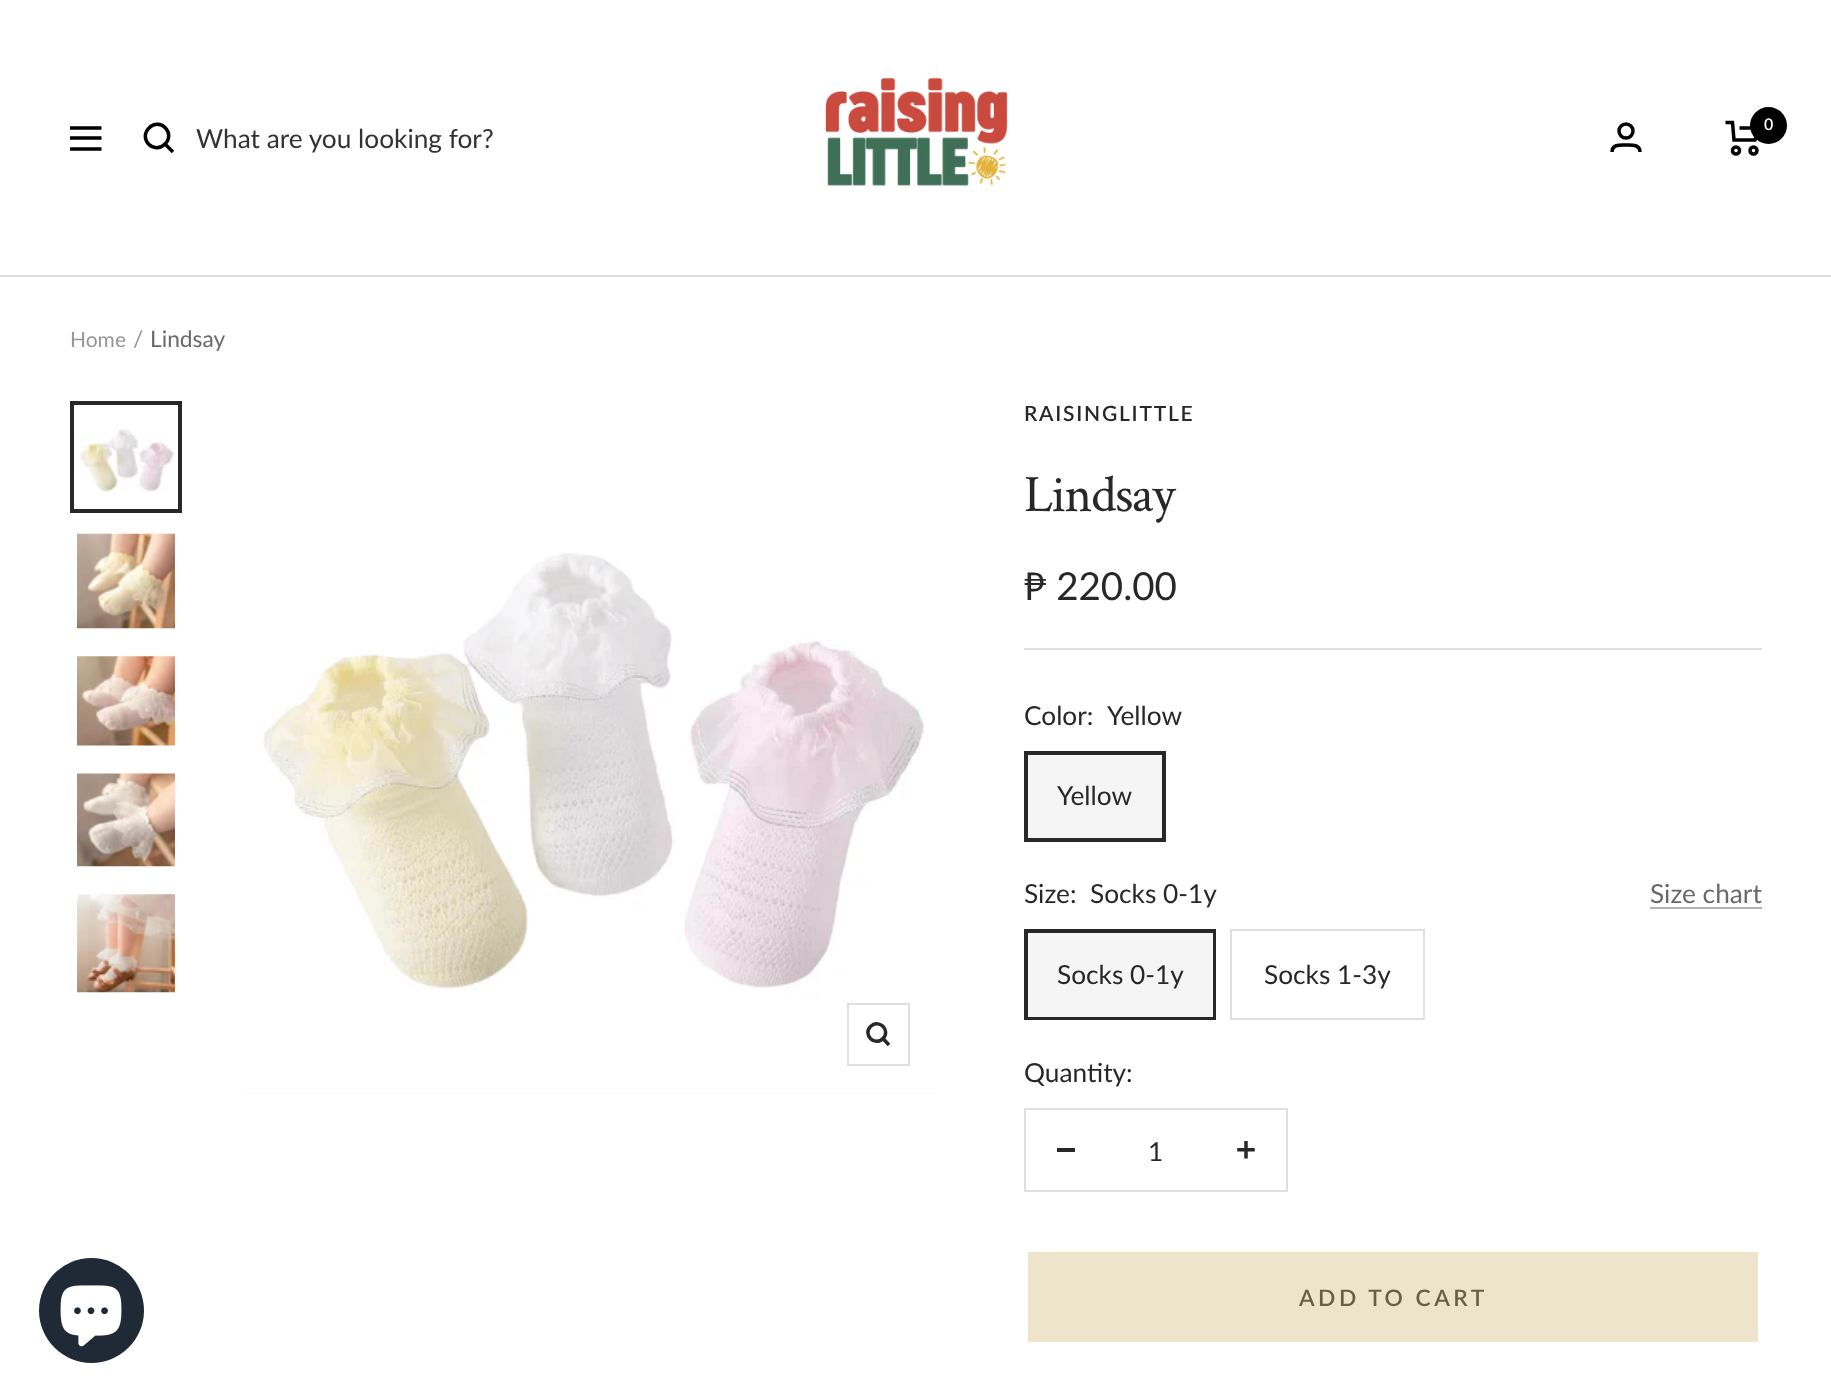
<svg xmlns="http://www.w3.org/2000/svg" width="1831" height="1400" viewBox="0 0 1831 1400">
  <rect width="100%" height="100%" fill="#ffffff"/>
  <rect x="0" y="275" width="1831" height="2" fill="#dfdfdf"/>
  <image x="825" y="77" width="183" height="109" href="img1.png"/>
  <circle cx="1626" cy="131" r="7" fill="none" stroke="#000000" stroke-width="3.5"/>
  <path d="M1612 152C1612 144 1620.5 145 1626 145C1631 145 1640 144 1640 152" fill="none" stroke="#000000" stroke-width="3.5"/>
  <path d="M1725.5 122.5H1732.5L1734 140H1755L1759 128H1739.5" fill="none" stroke="#000000" stroke-width="3.5"/>
  <circle cx="1736" cy="150.5" r="3.5" fill="none" stroke="#000000" stroke-width="3.5"/>
  <circle cx="1753.5" cy="150.5" r="3.5" fill="none" stroke="#000000" stroke-width="3.5"/>
  <circle cx="1768.5" cy="125.5" r="18.5" fill="#000000"/>
  <text x="1764" y="130" font-family="Lato" font-size="16" font-weight="600" fill="#ffffff">0</text>
  <path d="M70 128H101.5M70 149H101.5ZM70 138H101.5Z" fill="none" stroke="#000000" stroke-width="3.5"/>
  <path d="M165 144C176 133 160 117 149 128C138 139 154 155 165 144ZM165 144L173 152" fill="none" stroke="#000000" stroke-width="3.5"/>
  <text x="196" y="148" font-family="Lato" font-size="26.25" fill="#333333">What are you looking for?</text>
  <text x="70" y="347" font-family="Lato" font-size="21" fill="#969696">Home</text>
  <text x="133" y="347" font-family="Lato" font-size="22.75" fill="#969696">/</text>
  <text x="150" y="347" font-family="Lato" font-size="22.75" fill="#696969">Lindsay</text>
  <image x="79" y="429" width="96" height="64" href="img2.png"/>
  <rect x="72" y="403" width="108" height="108" fill="none" stroke="#282828" stroke-width="4"/>
  <image x="77" y="533" width="98" height="96" href="img3.png"/>
  <image x="77" y="656" width="98" height="90" href="img4.png"/>
  <image x="77" y="773" width="98" height="94" href="img5.png"/>
  <image x="77" y="894" width="98" height="99" href="img6.png"/>
  <rect x="245" y="1093" width="693" height="1" fill="#f5f5f5"/>
  <image x="245" y="401" width="693" height="693" href="img7.png"/>
  <rect x="848" y="1004" width="61" height="61" fill="none" stroke="#dfdfdf" stroke-width="2"/>
  <path d="M883 1038.5C891 1030.5 879 1018 870.5 1026.5C862.5 1034.5 874.5 1047 883 1038.5ZM883 1038.5L889 1045" fill="none" stroke="#282828" stroke-width="3.5"/>
  <rect x="1024" y="648" width="738" height="2" fill="#dfdfdf"/>
  <text x="1024" y="421" font-family="Lato" font-size="21" font-weight="600" letter-spacing="1.75" fill="#282828">RAISINGLITTLE</text>
  <text x="1024" y="511" font-family="Crimson Text" font-size="52.5" letter-spacing="-1.5" fill="#282828">Lindsay</text>
  <text x="1024" y="600" font-family="Lato" font-size="38.5" fill="#282828">₱ 220.00</text>
  <text x="1024" y="725" font-family="Lato" font-size="26.25" fill="#282828">Color:</text>
  <text x="1107" y="725" font-family="Lato" font-size="26.25" fill="#282828">Yellow</text>
  <rect x="1028" y="755" width="134" height="83" fill="#f5f5f5"/>
  <rect x="1025" y="752" width="140" height="89" fill="none" stroke="#282828" stroke-width="2"/>
  <rect x="1027" y="754" width="136" height="85" fill="none" stroke="#282828" stroke-width="2"/>
  <text x="1057" y="805" font-family="Lato" font-size="26.25" fill="#282828">Yellow</text>
  <text x="1024" y="903" font-family="Lato" font-size="26.25" fill="#282828">Size:</text>
  <text x="1090" y="903" font-family="Lato" font-size="26.25" fill="#282828">Socks 0-1y</text>
  <text x="1650" y="903" font-family="Lato" font-size="26.25" fill="#696969">Size chart</text>
  <rect x="1650" y="907" width="112" height="2" fill="#b4b4b4"/>
  <rect x="1028" y="933" width="185" height="84" fill="#f5f5f5"/>
  <rect x="1025" y="930" width="190" height="89" fill="none" stroke="#282828" stroke-width="2"/>
  <rect x="1027" y="932" width="187" height="86" fill="none" stroke="#282828" stroke-width="2"/>
  <text x="1057" y="984" font-family="Lato" font-size="26.25" fill="#282828">Socks 0-1y</text>
  <rect x="1231" y="930" width="193" height="89" fill="none" stroke="#dfdfdf" stroke-width="2"/>
  <text x="1264" y="984" font-family="Lato" font-size="26.25" fill="#282828">Socks 1-3y</text>
  <text x="1024" y="1082" font-family="Lato" font-size="26.25" fill="#282828">Quantity:</text>
  <rect x="1025" y="1109" width="262" height="82" fill="none" stroke="#dfdfdf" stroke-width="2"/>
  <rect x="1057" y="1148" width="18" height="4" fill="#282828"/>
  <text x="1148" y="1161" font-family="Lato" font-size="26.25" fill="#282828">1</text>
  <image x="1237" y="1141" width="18" height="18" href="img8.png"/>
  <rect x="1028" y="1252" width="730" height="90" fill="#eee4cc"/>
  <text x="1299" y="1306" font-family="Lato" font-size="22.75" font-weight="600" letter-spacing="3.5" fill="#6a5f46">ADD TO CART</text>
  <circle cx="91.5" cy="1310.5" r="52.5" fill="#202a36"/>
  <image x="60" y="1285" width="62" height="62" href="img9.png"/>
</svg>
